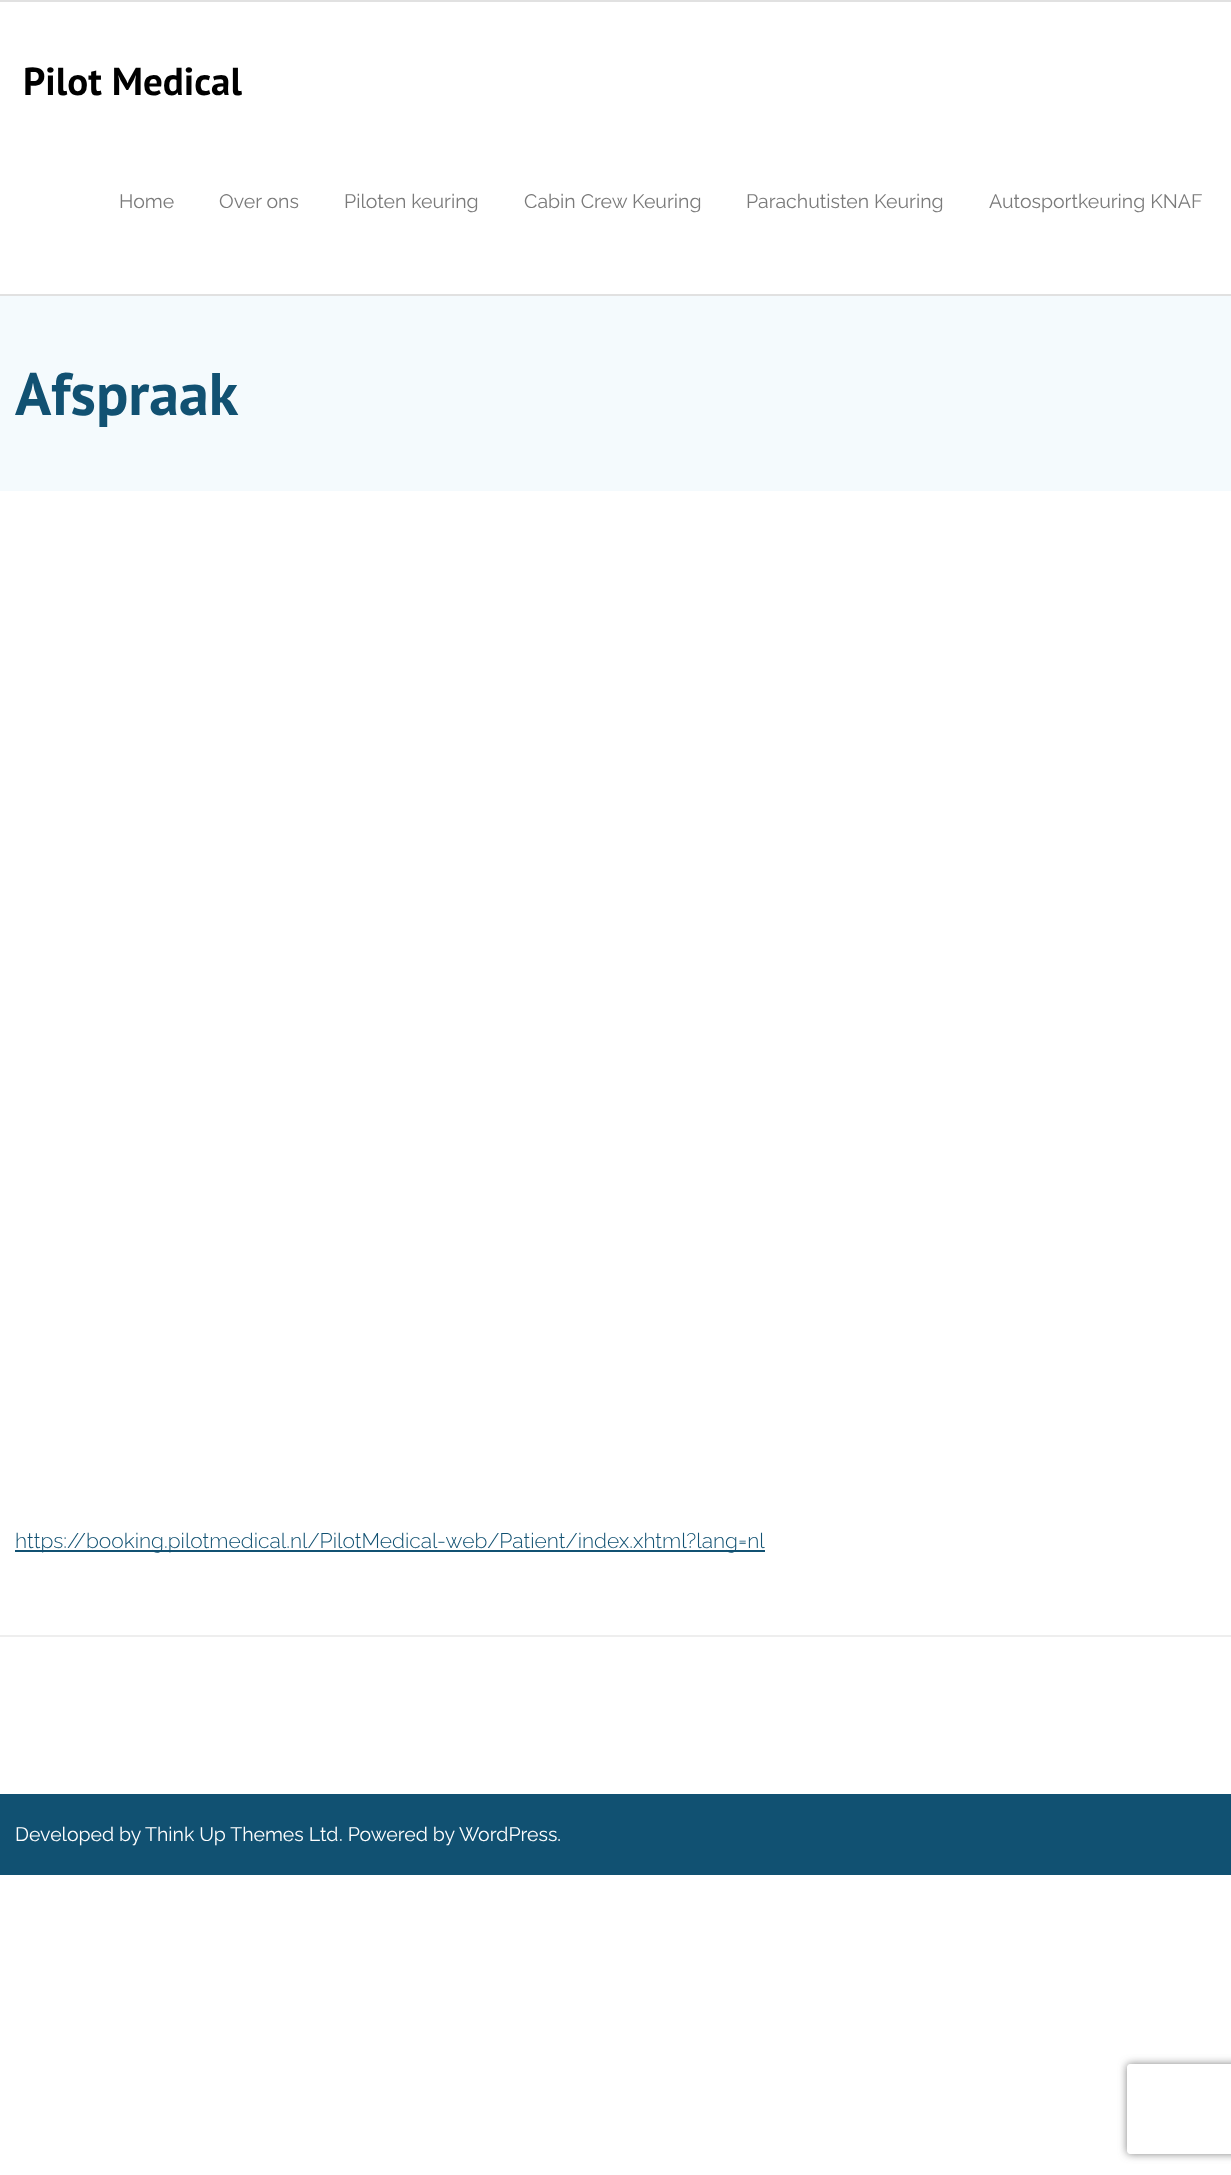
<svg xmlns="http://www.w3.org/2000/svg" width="1231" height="2175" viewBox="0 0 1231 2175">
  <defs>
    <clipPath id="clip1"><path d="M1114 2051H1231V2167H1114ZM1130 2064H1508C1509.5 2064 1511 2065.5 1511 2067V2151C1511 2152.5 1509.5 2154 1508 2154H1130C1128.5 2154 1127 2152.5 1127 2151V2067C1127 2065.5 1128.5 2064 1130 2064Z" clip-rule="evenodd"/></clipPath>
    <filter id="blur1" x="-50%" y="-200%" width="200%" height="500%"><feGaussianBlur stdDeviation="4"/></filter>
  </defs>
  <rect width="100%" height="100%" fill="#ffffff"/>
  <rect x="0" y="0" width="1231" height="2" fill="#e1e1e1"/>
  <rect x="0" y="294" width="1231" height="2" fill="#e1e1e1"/>
  <text x="23" y="95" font-family="PT Sans" font-size="39" font-weight="bold" fill="#000000">Pilot Medical</text>
  <text x="119" y="208" font-family="Raleway" font-size="19.5" fill="#7a7a7a">Home</text>
  <text x="219" y="208" font-family="Raleway" font-size="19.5" fill="#7a7a7a">Over ons</text>
  <text x="344" y="208" font-family="Raleway" font-size="19.5" fill="#7a7a7a">Piloten keuring</text>
  <text x="524" y="208" font-family="Raleway" font-size="19.5" fill="#7a7a7a">Cabin Crew Keuring</text>
  <text x="746" y="208" font-family="Raleway" font-size="19.5" fill="#7a7a7a">Parachutisten Keuring</text>
  <text x="989" y="208" font-family="Raleway" font-size="19.5" fill="#7a7a7a">Autosportkeuring KNAF</text>
  <rect x="0" y="296" width="1231" height="195" fill="#f4fafd"/>
  <text x="15" y="415" font-family="PT Sans" font-size="60" font-weight="bold" fill="#115172">Afspraak</text>
  <rect x="15" y="1550" width="750" height="2" fill="#115172"/>
  <text x="15" y="1548" font-family="Raleway" font-size="21" font-weight="300" fill="#115172">https://booking.pilotmedical.nl/PilotMedical-web/Patient/index.xhtml?lang=nl</text>
  <rect x="0" y="1635" width="1231" height="2" fill="#eeeeee"/>
  <rect x="0" y="1794" width="1231" height="81" fill="#115172"/>
  <text x="15" y="1841" font-family="Raleway" font-size="19.5" fill="#ffffff">Developed by</text>
  <text x="145" y="1841" font-family="Raleway" font-size="19.5" fill="#ffffff">Think Up Themes Ltd</text>
  <text x="339" y="1841" font-family="Raleway" font-size="19.5" fill="#ffffff">. Powered by</text>
  <text x="459" y="1841" font-family="Raleway" font-size="19.5" fill="#ffffff">WordPress.</text>
  <g clip-path="url(#clip1)">
    <rect x="1127" y="2064" width="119" height="90" rx="3" fill="#808080" filter="url(#blur1)"/>
  </g>
</svg>
